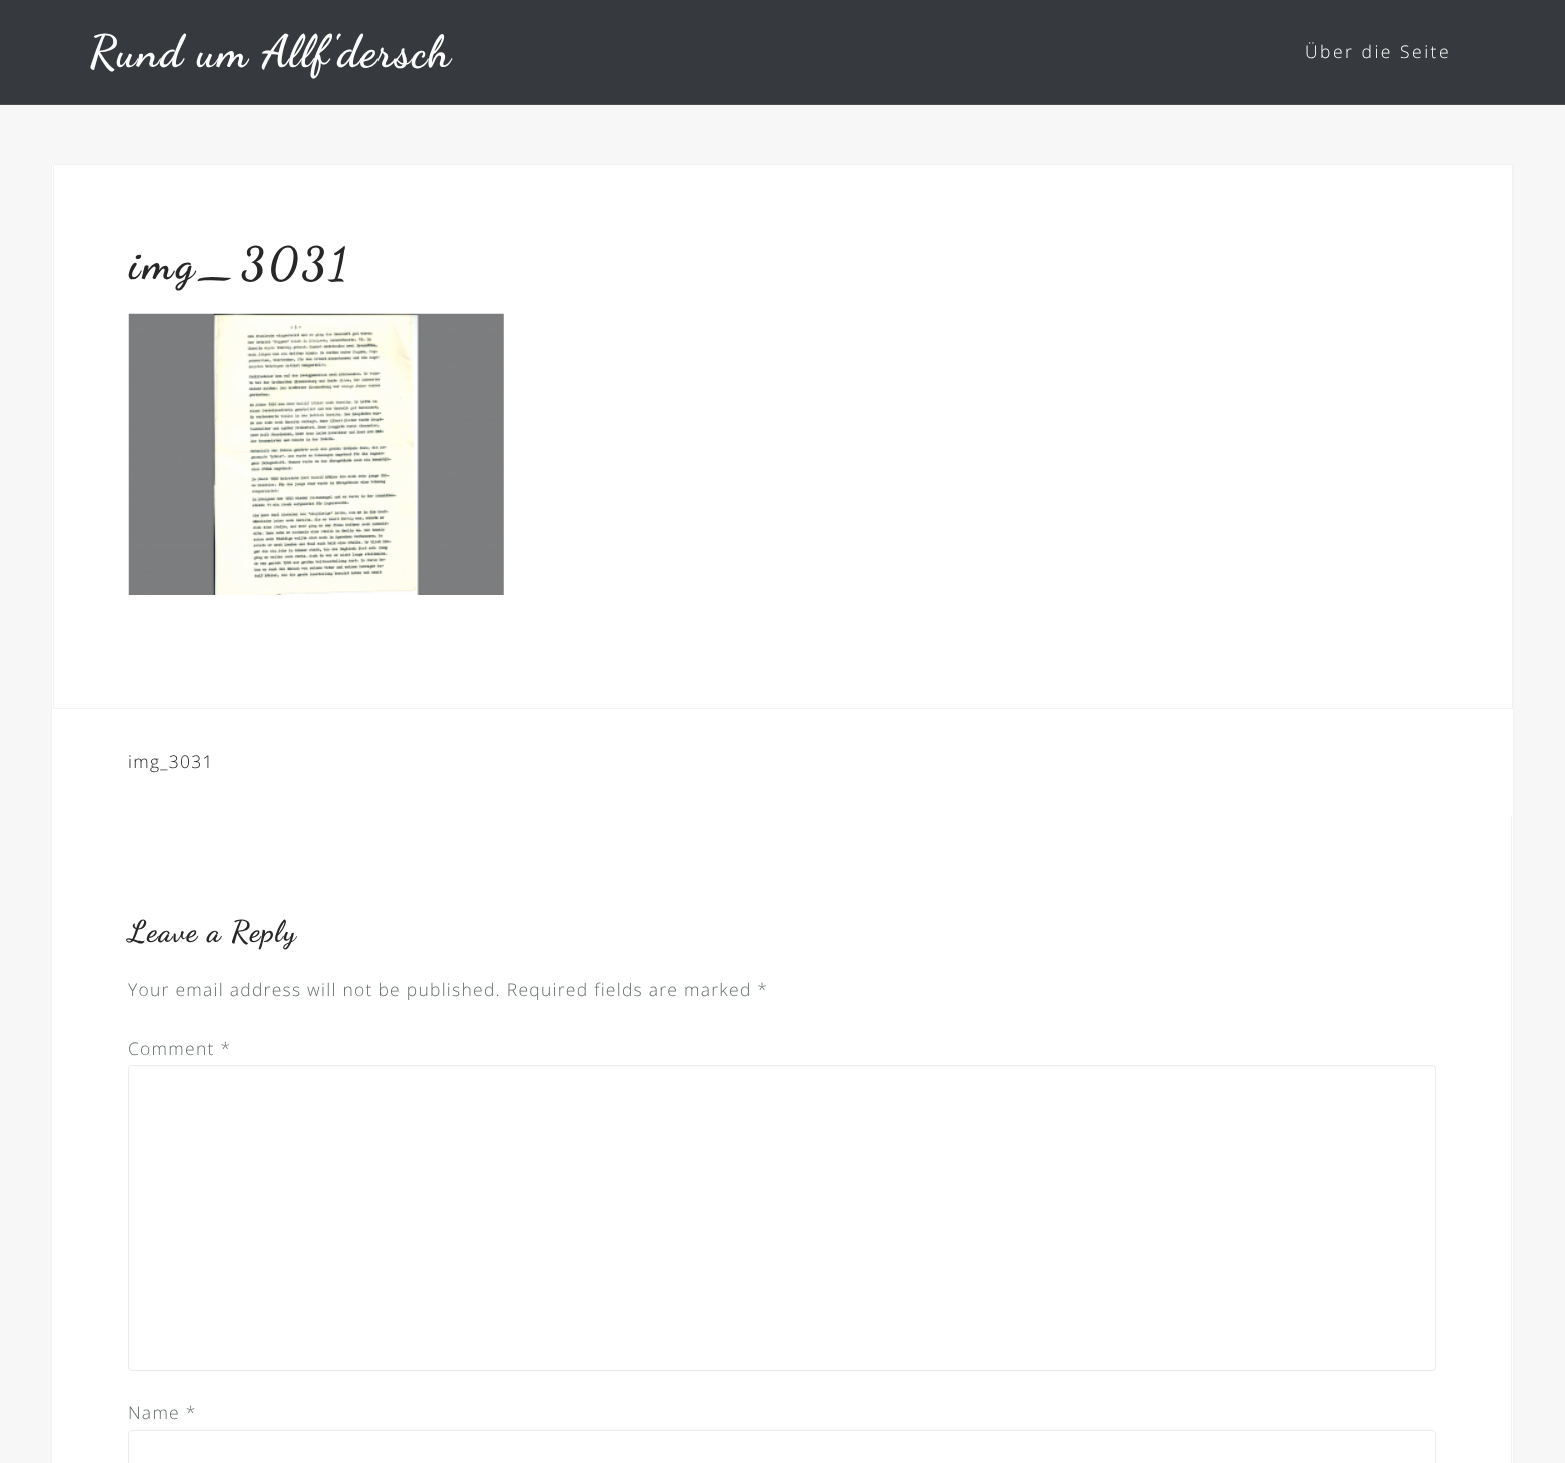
<svg xmlns="http://www.w3.org/2000/svg" width="1565" height="1463" viewBox="0 0 1565 1463">
  <rect width="100%" height="100%" fill="#f7f7f7"/>
  <rect x="0" y="0" width="1565" height="104" fill="#363a3e"/>
  <rect x="0" y="104" width="1565" height="1" fill="#4a4e51"/>
  <text x="89" y="66" font-family="Dancing Script" font-size="45" font-weight="bold" letter-spacing="1.25" fill="#ffffff">Rund um Allf'dersch</text>
  <text x="1305" y="58" font-family="Open Sans" font-size="17.5" font-weight="300" letter-spacing="2.5" fill="#ffffff">Über die Seite</text>
  <rect x="52" y="164" width="1461" height="1299" fill="#ffffff"/>
  <rect x="1513" y="164" width="1" height="1299" fill="#f2f2f3"/>
  <rect x="51" y="164" width="1" height="1299" fill="#f2f2f3"/>
  <rect x="53.5" y="164.5" width="1459" height="544" fill="none" stroke="#f2f2f3"/>
  <text x="129" y="278" font-family="Dancing Script" font-size="45" font-weight="bold" letter-spacing="3.25" fill="#272727">img_3031</text>
  <image x="128" y="313" width="376" height="282" href="img1.png"/>
  <text x="128" y="768" font-family="Open Sans" font-size="17.5" font-weight="300" letter-spacing="1.25" fill="#272727">img_3031</text>
  <rect x="1511" y="816" width="1" height="647" fill="#f2f2f3"/>
  <text x="128" y="941" font-family="Dancing Script" font-size="30" font-weight="bold" letter-spacing="1.25" fill="#272727">Leave a Reply</text>
  <text x="128" y="996" font-family="Open Sans" font-size="17.5" font-weight="300" letter-spacing="1.25" fill="#656d6d">Your email address will not be published. Required fields are marked *</text>
  <text x="128" y="1055" font-family="Open Sans" font-size="17.5" font-weight="300" letter-spacing="1.25" fill="#656d6d">Comment *</text>
  <rect x="128.5" y="1065.5" width="1307" height="305" rx="3.5" fill="none" stroke="#ebebeb"/>
  <text x="128" y="1419" font-family="Open Sans" font-size="17.5" font-weight="300" letter-spacing="1.25" fill="#656d6d">Name *</text>
  <rect x="128.5" y="1430.5" width="1307" height="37" rx="3.5" fill="none" stroke="#ebebeb"/>
</svg>
